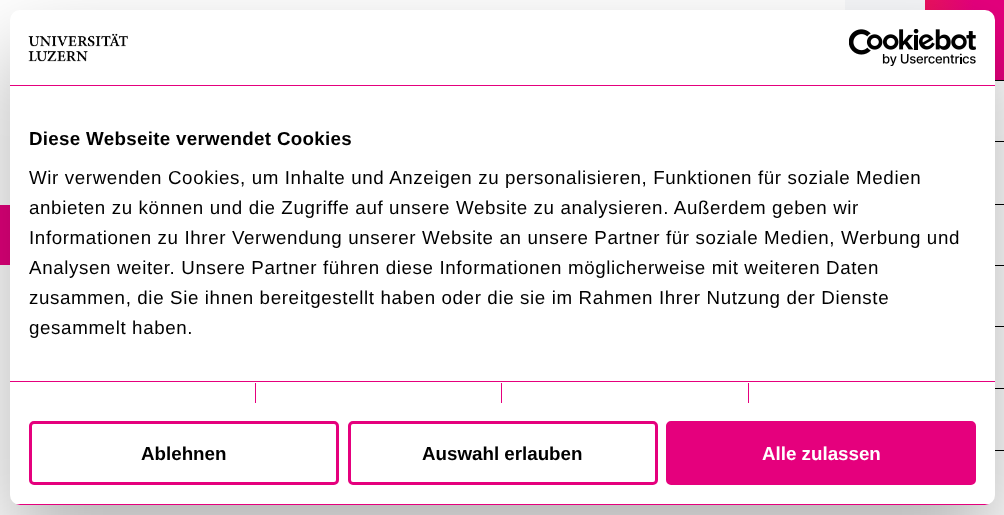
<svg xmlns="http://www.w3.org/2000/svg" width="1004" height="515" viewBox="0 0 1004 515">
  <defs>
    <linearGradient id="g1" gradientUnits="userSpaceOnUse" x1="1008" y1="37" x2="922" y2="43"><stop offset="0.37" stop-color="#e5007d"/><stop offset="1" stop-color="#ed145b"/></linearGradient>
    <linearGradient id="g2" gradientUnits="userSpaceOnUse" x1="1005" y1="76" x2="925" y2="82"><stop offset="0.37" stop-color="#e5007d"/><stop offset="1" stop-color="#ed145b"/></linearGradient>
    <filter id="blur1" x="-50%" y="-200%" width="200%" height="500%"><feGaussianBlur stdDeviation="42.5"/></filter>
    <clipPath id="clip1"><rect x="10" y="10" width="985" height="495" rx="10"/></clipPath>
  </defs>
  <rect width="100%" height="100%" fill="#ffffff"/>
  <rect x="845" y="0" width="80" height="10" fill="#f7f8fa"/>
  <rect x="925" y="0" width="79" height="79" fill="url(#g1)"/>
  <rect x="995" y="79" width="9" height="1" fill="url(#g2)"/>
  <rect x="995" y="80" width="9" height="1" fill="#000000"/>
  <rect x="995" y="141" width="9" height="1" fill="#000000"/>
  <rect x="995" y="204" width="9" height="1" fill="#000000"/>
  <rect x="995" y="265" width="9" height="1" fill="#000000"/>
  <rect x="0" y="205" width="10" height="60" fill="#e5007d"/>
  <rect x="995" y="326" width="9" height="1" fill="#000000"/>
  <rect x="995" y="388" width="9" height="1" fill="#000000"/>
  <rect x="995" y="450" width="9" height="1" fill="#000000"/>
  <rect x="10" y="50" width="985" height="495" rx="10" fill="#000000" fill-opacity="0.3" filter="url(#blur1)"/>
  <rect x="10" y="10" width="985" height="495" rx="10" fill="#ffffff"/>
  <rect x="10" y="85" width="985" height="1" fill="#e5007d"/>
  <image x="28" y="33" width="100" height="29" href="img1.png"/>
  <image x="849" y="29" width="127" height="37" href="img2.png"/>
  <rect x="10" y="381" width="985" height="1" fill="#e5007d"/>
  <text x="29" y="145" font-family="Liberation Sans" font-size="18.75" font-weight="bold" letter-spacing="0.3" fill="#000000">Diese Webseite verwendet Cookies</text>
  <text x="29" y="184" font-family="Liberation Sans" font-size="18.75" letter-spacing="0.62" fill="#000000">Wir verwenden Cookies, um Inhalte und Anzeigen zu personalisieren, Funktionen für soziale Medien</text>
  <text x="29" y="214" font-family="Liberation Sans" font-size="18.75" letter-spacing="0.62" fill="#000000">anbieten zu können und die Zugriffe auf unsere Website zu analysieren. Außerdem geben wir</text>
  <text x="29" y="244" font-family="Liberation Sans" font-size="18.75" letter-spacing="0.62" fill="#000000">Informationen zu Ihrer Verwendung unserer Website an unsere Partner für soziale Medien, Werbung und</text>
  <text x="29" y="274" font-family="Liberation Sans" font-size="18.75" letter-spacing="0.62" fill="#000000">Analysen weiter. Unsere Partner führen diese Informationen möglicherweise mit weiteren Daten</text>
  <text x="29" y="304" font-family="Liberation Sans" font-size="18.75" letter-spacing="0.62" fill="#000000">zusammen, die Sie ihnen bereitgestellt haben oder die sie im Rahmen Ihrer Nutzung der Dienste</text>
  <text x="29" y="334" font-family="Liberation Sans" font-size="18.75" letter-spacing="0.62" fill="#000000">gesammelt haben.</text>
  <rect x="255" y="383" width="1" height="20" fill="#e5007d"/>
  <rect x="501" y="383" width="1" height="20" fill="#e5007d"/>
  <rect x="748" y="383" width="1" height="20" fill="#e5007d"/>
  <g clip-path="url(#clip1)">
    <rect x="10" y="504" width="985" height="1" fill="#e5007d"/>
  </g>
  <rect x="30.5" y="422.5" width="307" height="61" rx="3.5" fill="none" stroke="#e5007d" stroke-width="3"/>
  <text x="141" y="460" font-family="Liberation Sans" font-size="18.75" font-weight="bold" fill="#000000">Ablehnen</text>
  <rect x="349.5" y="422.5" width="307" height="61" rx="3.5" fill="none" stroke="#e5007d" stroke-width="3"/>
  <text x="422" y="460" font-family="Liberation Sans" font-size="18.75" font-weight="bold" fill="#000000">Auswahl erlauben</text>
  <rect x="667.5" y="422.5" width="307" height="61" rx="3.5" fill="#e5007d" stroke="#e5007d" stroke-width="3"/>
  <text x="762" y="460" font-family="Liberation Sans" font-size="18.75" font-weight="bold" fill="#ffffff">Alle zulassen</text>
</svg>
